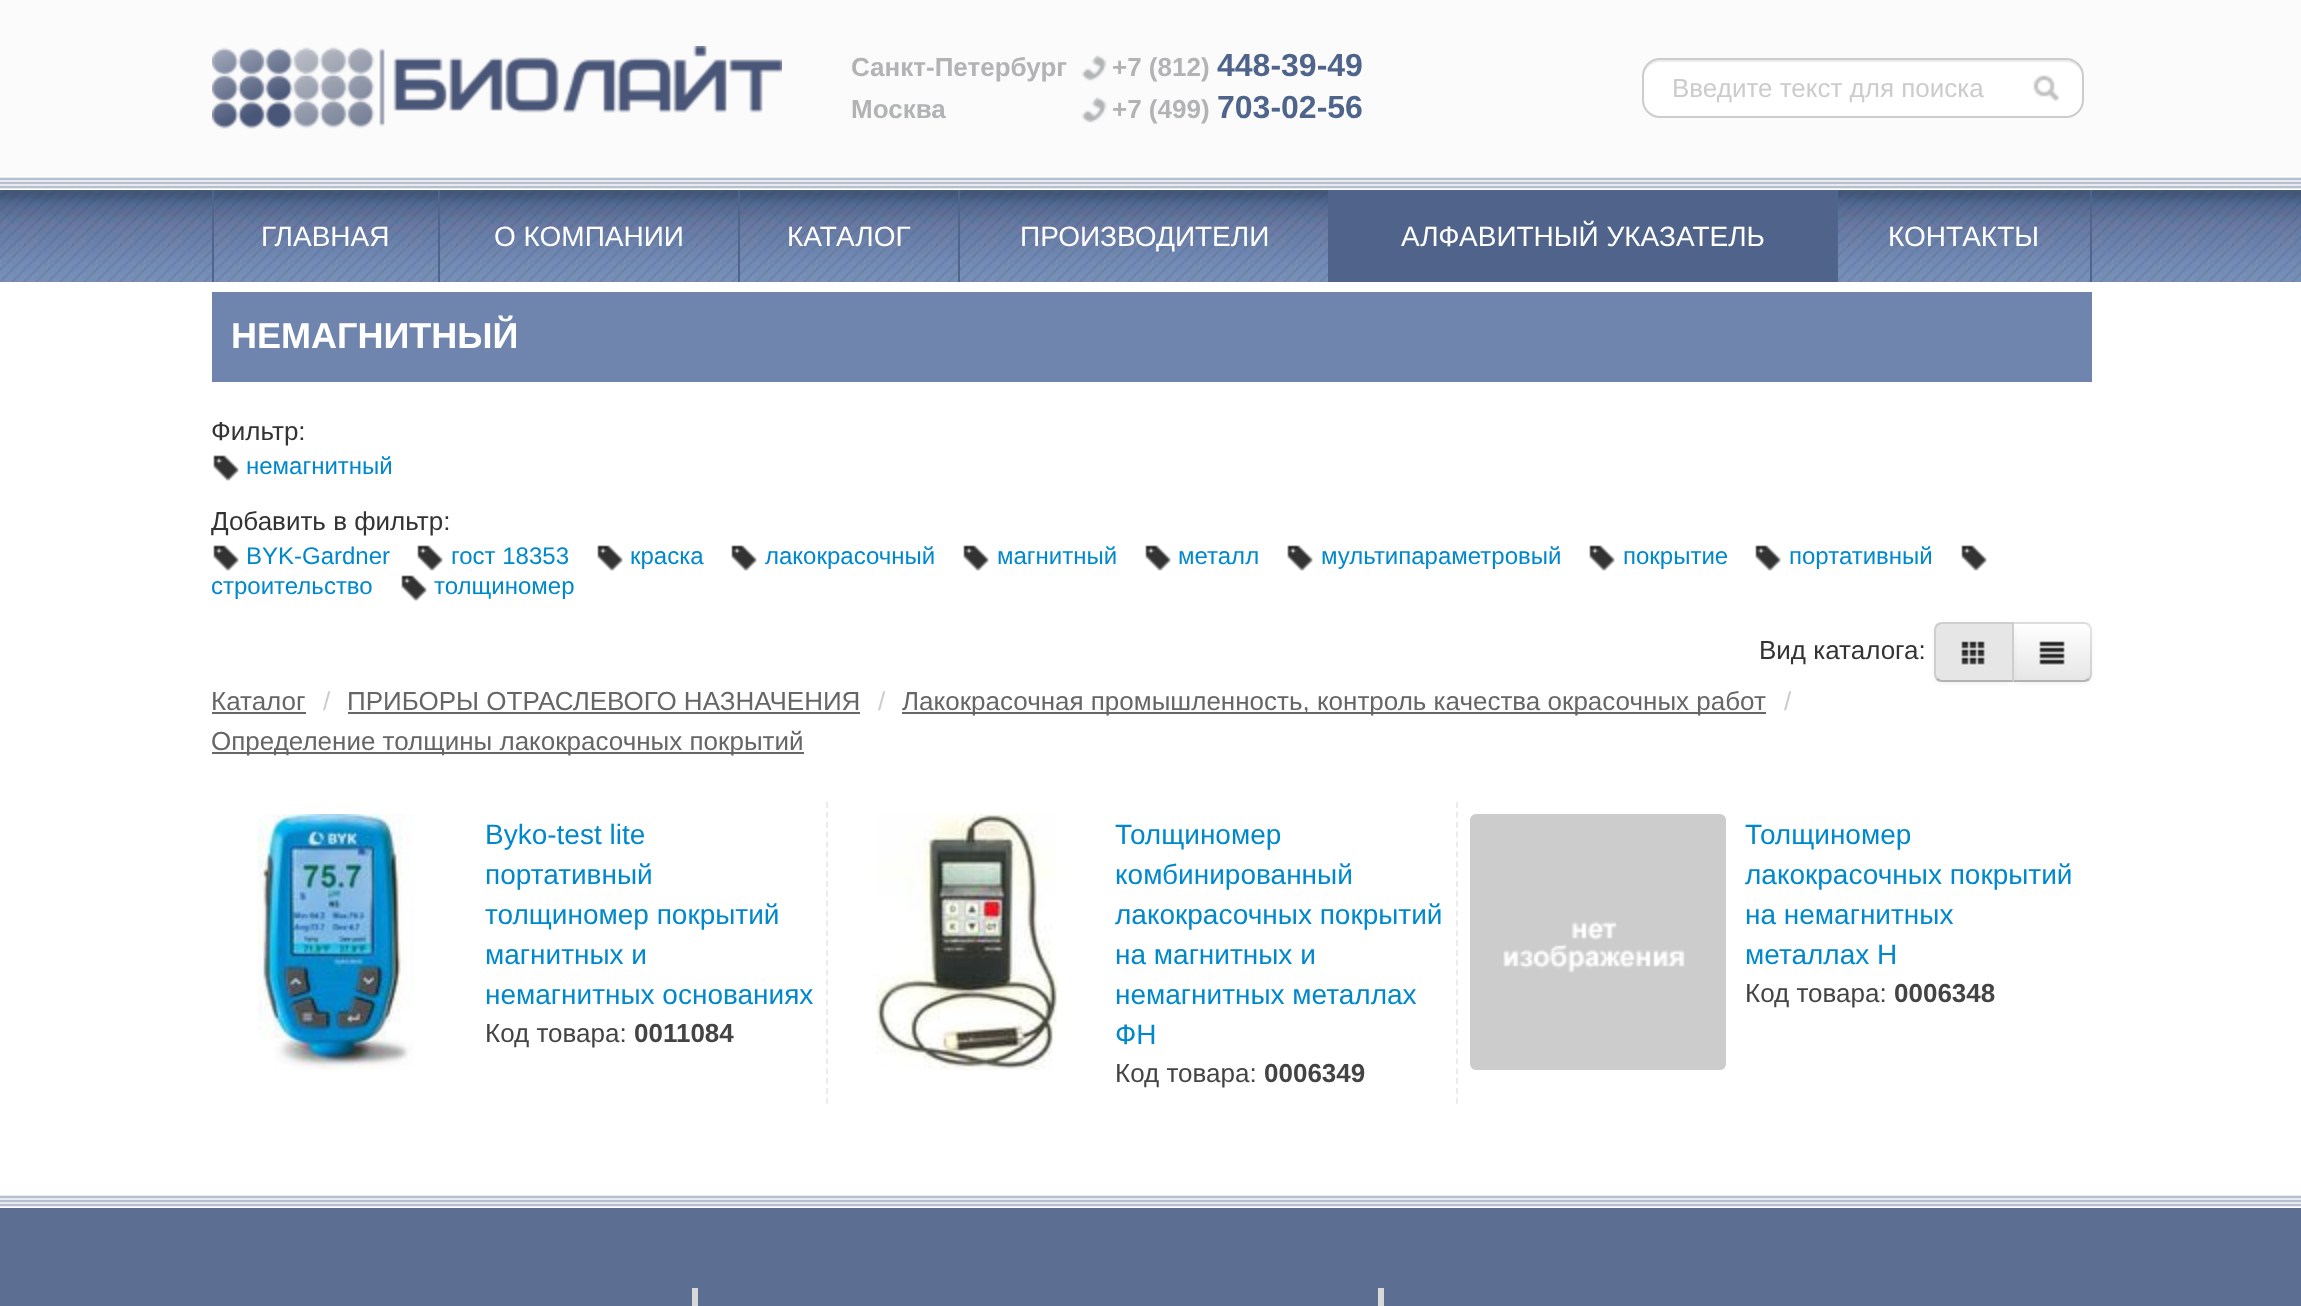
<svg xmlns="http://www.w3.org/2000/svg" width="2301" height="1306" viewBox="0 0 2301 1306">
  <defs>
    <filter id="blur1" x="-50%" y="-200%" width="200%" height="500%"><feGaussianBlur stdDeviation="2"/></filter>
    <clipPath id="clip1"><path d="M2012 622H2084C2088.5 622 2092 625.5 2092 630V674C2092 678.5 2088.5 682 2084 682H2012Z"/></clipPath>
    <linearGradient id="g1" gradientUnits="userSpaceOnUse" x1="2052" y1="624" x2="2052" y2="680"><stop offset="0" stop-color="#ffffff"/><stop offset="1" stop-color="#e6e6e6"/></linearGradient>
  </defs>
  <rect width="100%" height="100%" fill="#ffffff"/>
  <rect x="0" y="0" width="2301" height="176" fill="#fbfbfb"/>
  <image x="212" y="46" width="570" height="83" href="img1.png"/>
  <text x="851" y="76" font-family="Liberation Sans" font-size="26" font-weight="bold" fill="#b1b3b4">Санкт-Петербург</text>
  <image x="1081" y="55" width="26" height="26" href="img2.png"/>
  <text x="1112" y="76" font-family="Liberation Sans" font-size="26" font-weight="bold" fill="#b1b3b4">+7 (812)</text>
  <text x="1217" y="76" font-family="Liberation Sans" font-size="32" font-weight="bold" fill="#4f648b">448-39-49</text>
  <text x="851" y="118" font-family="Liberation Sans" font-size="26" font-weight="bold" fill="#b1b3b4">Москва</text>
  <image x="1081" y="97" width="26" height="26" href="img2.png"/>
  <text x="1112" y="118" font-family="Liberation Sans" font-size="26" font-weight="bold" fill="#b1b3b4">+7 (499)</text>
  <text x="1217" y="118" font-family="Liberation Sans" font-size="32" font-weight="bold" fill="#4f648b">703-02-56</text>
  <rect x="1642" y="58" width="442" height="60" rx="18" fill="#ffffff"/>
  <path d="M1660 62H2066C2075 62 2082 69 2082 78V76C2082 67 2075 60 2066 60H1660C1651 60 1644 67 1644 76V78C1644 69 1651 62 1660 62Z" fill="#ececec"/>
  <rect x="1643" y="59" width="440" height="58" rx="17" fill="none" stroke="#cccccc" stroke-width="2"/>
  <text x="1672" y="97" font-family="Liberation Sans" font-size="26" fill="#cccccc">Введите текст для поиска</text>
  <image x="2033" y="75" width="27" height="27" href="img3.png"/>
  <image x="0" y="177" width="2301" height="12" href="img4.png"/>
  <image x="0" y="190" width="2301" height="92" href="img5.png"/>
  <rect x="438" y="190" width="2" height="92" fill="#4f658c"/>
  <rect x="212" y="190" width="2" height="92" fill="#4f658c"/>
  <text x="261" y="246" font-family="Liberation Sans" font-size="28" fill="#ffffff">ГЛАВНАЯ</text>
  <rect x="738" y="190" width="2" height="92" fill="#4f658c"/>
  <text x="494" y="246" font-family="Liberation Sans" font-size="28" fill="#ffffff">О КОМПАНИИ</text>
  <rect x="958" y="190" width="2" height="92" fill="#4f658c"/>
  <text x="787" y="246" font-family="Liberation Sans" font-size="28" fill="#ffffff">КАТАЛОГ</text>
  <rect x="1328" y="190" width="2" height="92" fill="#4f658c"/>
  <text x="1020" y="246" font-family="Liberation Sans" font-size="28" fill="#ffffff">ПРОИЗВОДИТЕЛИ</text>
  <rect x="1330" y="190" width="506" height="92" fill="#50638b"/>
  <rect x="1836" y="190" width="2" height="92" fill="#4f658c"/>
  <text x="1401" y="246" font-family="Liberation Sans" font-size="28" fill="#ffffff">АЛФАВИТНЫЙ УКАЗАТЕЛЬ</text>
  <rect x="2090" y="190" width="2" height="92" fill="#4f658c"/>
  <text x="1888" y="246" font-family="Liberation Sans" font-size="28" fill="#ffffff">КОНТАКТЫ</text>
  <rect x="212" y="292" width="1880" height="90" fill="#6f85ae"/>
  <text x="231" y="348" font-family="Liberation Sans" font-size="36" font-weight="bold" fill="#ffffff">НЕМАГНИТНЫЙ</text>
  <text x="211" y="440" font-family="Liberation Sans" font-size="26" fill="#333333">Фильтр:</text>
  <image x="213" y="455" width="26" height="26" href="img6.png"/>
  <text x="246" y="474" font-family="Liberation Sans" font-size="24" fill="#0088cc">немагнитный</text>
  <text x="211" y="530" font-family="Liberation Sans" font-size="26" fill="#333333">Добавить в фильтр:</text>
  <image x="213" y="545" width="26" height="26" href="img6.png"/>
  <text x="246" y="564" font-family="Liberation Sans" font-size="24" fill="#0088cc">BYK-Gardner</text>
  <image x="417" y="545" width="26" height="26" href="img6.png"/>
  <text x="451" y="564" font-family="Liberation Sans" font-size="24" fill="#0088cc">гост 18353</text>
  <image x="597" y="545" width="26" height="26" href="img6.png"/>
  <text x="630" y="564" font-family="Liberation Sans" font-size="24" fill="#0088cc">краска</text>
  <image x="731" y="545" width="26" height="26" href="img6.png"/>
  <text x="765" y="564" font-family="Liberation Sans" font-size="24" fill="#0088cc">лакокрасочный</text>
  <image x="963" y="545" width="26" height="26" href="img6.png"/>
  <text x="997" y="564" font-family="Liberation Sans" font-size="24" fill="#0088cc">магнитный</text>
  <image x="1145" y="545" width="26" height="26" href="img6.png"/>
  <text x="1178" y="564" font-family="Liberation Sans" font-size="24" fill="#0088cc">металл</text>
  <image x="1287" y="545" width="26" height="26" href="img6.png"/>
  <text x="1321" y="564" font-family="Liberation Sans" font-size="24" fill="#0088cc">мультипараметровый</text>
  <image x="1589" y="545" width="26" height="26" href="img6.png"/>
  <text x="1623" y="564" font-family="Liberation Sans" font-size="24" fill="#0088cc">покрытие</text>
  <image x="1755" y="545" width="26" height="26" href="img6.png"/>
  <text x="1789" y="564" font-family="Liberation Sans" font-size="24" fill="#0088cc">портативный</text>
  <image x="1961" y="545" width="26" height="26" href="img6.png"/>
  <text x="211" y="594" font-family="Liberation Sans" font-size="24" fill="#0088cc">строительство</text>
  <image x="401" y="575" width="26" height="26" href="img6.png"/>
  <text x="434" y="594" font-family="Liberation Sans" font-size="24" fill="#0088cc">толщиномер</text>
  <text x="1759" y="659" font-family="Liberation Sans" font-size="26" fill="#333333">Вид каталога:</text>
  <rect x="2012" y="624" width="80" height="60" rx="8" fill="#000000" fill-opacity="0.05" filter="url(#blur1)"/>
  <path d="M2012 622H2084C2088.5 622 2092 625.5 2092 630V674C2092 678.5 2088.5 682 2084 682H2012Z" fill="#f5f5f5"/>
  <g clip-path="url(#clip1)">
    <rect x="2014" y="624" width="78" height="56" fill="url(#g1)"/>
  </g>
  <path d="M2012 622L2014 624H2085L2088 626L2090 624C2088 623 2086 622 2084 622Z" fill="#000000" fill-opacity="0.1"/>
  <path d="M2092 674V630C2092 628 2091 626 2090 624L2088 626C2089 627 2090 628 2090 630V674C2090 676 2089 677 2088 678L2090 680C2091 678 2092 676 2092 674Z" fill="#000000" fill-opacity="0.1"/>
  <path d="M2084 682C2086 682 2088 681 2090 680L2088 678L2085 680H2014L2012 682Z" fill="#b3b3b3"/>
  <rect x="1934" y="624" width="80" height="60" rx="8" fill="#000000" fill-opacity="0.05" filter="url(#blur1)"/>
  <path d="M1942 622H2014V682H1942C1937.5 682 1934 678.5 1934 674V630C1934 625.5 1937.5 622 1942 622Z" fill="#e6e6e6"/>
  <path d="M1942 622C1940 622 1938 623 1936 624L1938 626L1941 624H2012L2014 622Z" fill="#000000" fill-opacity="0.1"/>
  <path d="M2014 622L2012 624V680L2014 682Z" fill="#000000" fill-opacity="0.1"/>
  <path d="M2014 682L2012 680H1941L1938 678L1936 680C1938 681 1940 682 1942 682Z" fill="#b3b3b3"/>
  <path d="M1934 630V674C1934 676 1935 678 1936 680L1938 678C1937 677 1936 676 1936 674V630C1936 628 1937 627 1938 626L1936 624C1935 626 1934 628 1934 630Z" fill="#000000" fill-opacity="0.1"/>
  <image x="1961" y="641" width="24" height="25" href="img7.png"/>
  <image x="2039" y="641" width="26" height="25" href="img8.png"/>
  <text x="211" y="710" font-family="Liberation Sans" font-size="26" fill="#666666">Каталог</text>
  <rect x="212" y="712" width="94" height="2" fill="#666666"/>
  <text x="323" y="710" font-family="Liberation Sans" font-size="26" fill="#cccccc">/</text>
  <text x="347" y="710" font-family="Liberation Sans" font-size="26" fill="#666666">ПРИБОРЫ ОТРАСЛЕВОГО НАЗНАЧЕНИЯ</text>
  <rect x="348" y="712" width="512" height="2" fill="#666666"/>
  <text x="878" y="710" font-family="Liberation Sans" font-size="26" fill="#cccccc">/</text>
  <rect x="902" y="712" width="864" height="2" fill="#666666"/>
  <text x="902" y="710" font-family="Liberation Sans" font-size="26" fill="#666666">Лакокрасочная промышленность, контроль качества окрасочных работ</text>
  <text x="1784" y="710" font-family="Liberation Sans" font-size="26" fill="#cccccc">/</text>
  <rect x="212" y="752" width="592" height="2" fill="#666666"/>
  <text x="211" y="750" font-family="Liberation Sans" font-size="26" fill="#666666">Определение толщины лакокрасочных покрытий</text>
  <path d="M827 802V1104" fill="none" stroke="#e9ebed" stroke-width="2" stroke-dasharray="6 3.86"/>
  <image x="258" y="814" width="156" height="256" href="img9.png"/>
  <text x="485" y="844" font-family="Liberation Sans" font-size="28" fill="#0088cc">Byko-test lite</text>
  <text x="485" y="884" font-family="Liberation Sans" font-size="28" fill="#0088cc">портативный</text>
  <text x="485" y="924" font-family="Liberation Sans" font-size="28" fill="#0088cc">толщиномер покрытий</text>
  <text x="485" y="964" font-family="Liberation Sans" font-size="28" fill="#0088cc">магнитных и</text>
  <text x="485" y="1004" font-family="Liberation Sans" font-size="28" fill="#0088cc">немагнитных основаниях</text>
  <text x="485" y="1042" font-family="Liberation Sans" font-size="26" fill="#444444">Код товара:</text>
  <text x="634" y="1042" font-family="Liberation Sans" font-size="26" font-weight="bold" fill="#444444">0011084</text>
  <path d="M1457 802V1104" fill="none" stroke="#e9ebed" stroke-width="2" stroke-dasharray="6 3.86"/>
  <image x="876" y="814" width="182" height="256" href="img10.png"/>
  <text x="1115" y="844" font-family="Liberation Sans" font-size="28" fill="#0088cc">Толщиномер</text>
  <text x="1115" y="884" font-family="Liberation Sans" font-size="28" fill="#0088cc">комбинированный</text>
  <text x="1115" y="924" font-family="Liberation Sans" font-size="28" fill="#0088cc">лакокрасочных покрытий</text>
  <text x="1115" y="964" font-family="Liberation Sans" font-size="28" fill="#0088cc">на магнитных и</text>
  <text x="1115" y="1004" font-family="Liberation Sans" font-size="28" fill="#0088cc">немагнитных металлах</text>
  <text x="1115" y="1044" font-family="Liberation Sans" font-size="28" fill="#0088cc">ФН</text>
  <text x="1115" y="1082" font-family="Liberation Sans" font-size="26" fill="#444444">Код товара:</text>
  <text x="1264" y="1082" font-family="Liberation Sans" font-size="26" font-weight="bold" fill="#444444">0006349</text>
  <image x="1470" y="814" width="256" height="256" href="img11.png"/>
  <text x="1745" y="844" font-family="Liberation Sans" font-size="28" fill="#0088cc">Толщиномер</text>
  <text x="1745" y="884" font-family="Liberation Sans" font-size="28" fill="#0088cc">лакокрасочных покрытий</text>
  <text x="1745" y="924" font-family="Liberation Sans" font-size="28" fill="#0088cc">на немагнитных</text>
  <text x="1745" y="964" font-family="Liberation Sans" font-size="28" fill="#0088cc">металлах Н</text>
  <text x="1745" y="1002" font-family="Liberation Sans" font-size="26" fill="#444444">Код товара:</text>
  <text x="1894" y="1002" font-family="Liberation Sans" font-size="26" font-weight="bold" fill="#444444">0006348</text>
  <rect x="0" y="1208" width="2301" height="98" fill="#5c6e92"/>
  <image x="0" y="1194" width="2301" height="14" href="img12.png"/>
  <rect x="692" y="1288" width="6" height="18" fill="#d8d9d9"/>
  <rect x="1378" y="1288" width="6" height="18" fill="#d8d9d9"/>
</svg>
